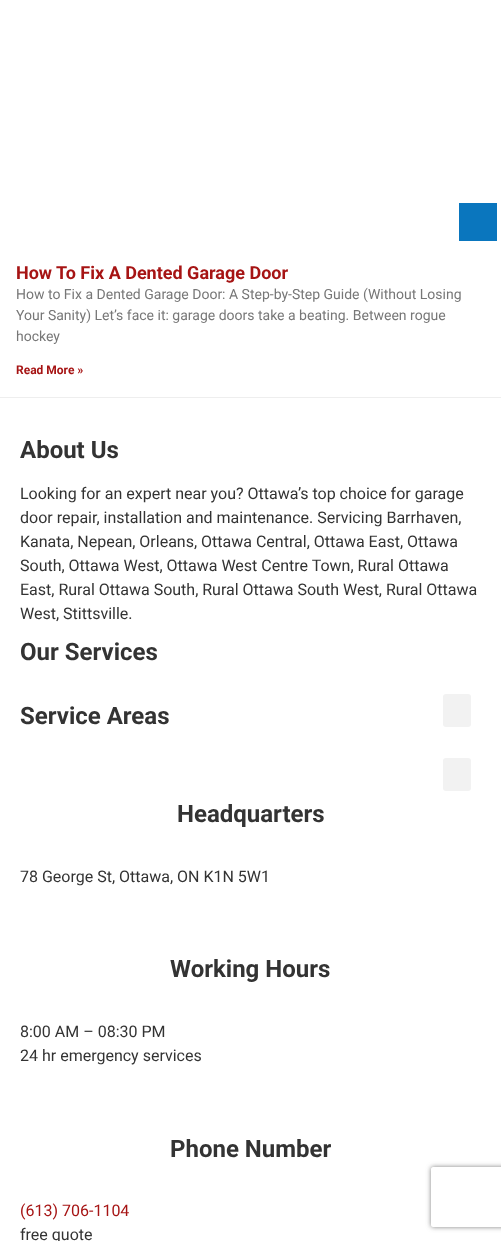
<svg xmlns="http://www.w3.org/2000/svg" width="501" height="1241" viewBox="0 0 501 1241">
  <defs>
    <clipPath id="clip1"><path d="M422 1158H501V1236H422ZM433 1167H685C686 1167 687 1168 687 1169V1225C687 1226 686 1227 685 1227H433C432 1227 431 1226 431 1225V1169C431 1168 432 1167 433 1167Z" clip-rule="evenodd"/></clipPath>
    <filter id="blur1" x="-50%" y="-200%" width="200%" height="500%"><feGaussianBlur stdDeviation="2.5"/></filter>
  </defs>
  <rect width="100%" height="100%" fill="#ffffff"/>
  <rect x="457.5" y="201.5" width="41" height="41" rx="0.5" fill="#0a76be" stroke="#ffffff" stroke-width="3"/>
  <rect x="0" y="397" width="501" height="1" fill="#eeeeee"/>
  <text x="16" y="279" font-family="Roboto" font-size="18" font-weight="bold" fill="#a61414">How To Fix A Dented Garage Door</text>
  <text x="16" y="299" font-family="Roboto" font-size="14" fill="#777777">How to Fix a Dented Garage Door: A Step-by-Step Guide (Without Losing</text>
  <text x="16" y="320" font-family="Roboto" font-size="14" fill="#777777">Your Sanity) Let’s face it: garage doors take a beating. Between rogue</text>
  <text x="16" y="341" font-family="Roboto" font-size="14" fill="#777777">hockey</text>
  <text x="16" y="374" font-family="Roboto" font-size="12" font-weight="bold" fill="#a61414">Read More »</text>
  <text x="20" y="458" font-family="Roboto" font-size="24" font-weight="bold" fill="#333333">About Us</text>
  <text x="20" y="499" font-family="Roboto" font-size="16" fill="#333333">Looking for an expert near you? Ottawa’s top choice for garage</text>
  <text x="20" y="523" font-family="Roboto" font-size="16" fill="#333333">door repair, installation and maintenance. Servicing Barrhaven,</text>
  <text x="20" y="547" font-family="Roboto" font-size="16" fill="#333333">Kanata, Nepean, Orleans, Ottawa Central, Ottawa East, Ottawa</text>
  <text x="20" y="571" font-family="Roboto" font-size="16" fill="#333333">South, Ottawa West, Ottawa West Centre Town, Rural Ottawa</text>
  <text x="20" y="595" font-family="Roboto" font-size="16" fill="#333333">East, Rural Ottawa South, Rural Ottawa South West, Rural Ottawa</text>
  <text x="20" y="619" font-family="Roboto" font-size="16" fill="#333333">West, Stittsville.</text>
  <text x="20" y="660" font-family="Roboto" font-size="24" font-weight="bold" fill="#333333">Our Services</text>
  <rect x="443" y="694" width="28" height="33" rx="3" fill="#f2f2f2"/>
  <text x="20" y="724" font-family="Roboto" font-size="24" font-weight="bold" fill="#333333">Service Areas</text>
  <rect x="443" y="758" width="28" height="33" rx="3" fill="#f2f2f2"/>
  <text x="177" y="822" font-family="Roboto" font-size="24" font-weight="bold" fill="#333333">Headquarters</text>
  <text x="20" y="882" font-family="Roboto" font-size="16" fill="#333333">78 George St, Ottawa, ON K1N 5W1</text>
  <text x="170" y="977" font-family="Roboto" font-size="24" font-weight="bold" fill="#333333">Working Hours</text>
  <text x="20" y="1037" font-family="Roboto" font-size="16" fill="#333333">8:00 AM – 08:30 PM</text>
  <text x="20" y="1061" font-family="Roboto" font-size="16" fill="#333333">24 hr emergency services</text>
  <text x="170" y="1157" font-family="Roboto" font-size="24" font-weight="bold" fill="#333333">Phone Number</text>
  <text x="20" y="1216" font-family="Roboto" font-size="16" fill="#a61414">(613) 706-1104</text>
  <text x="20" y="1240" font-family="Roboto" font-size="16" fill="#333333">free quote</text>
  <g clip-path="url(#clip1)">
    <rect x="431" y="1167" width="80" height="60" rx="2" fill="#808080" filter="url(#blur1)"/>
  </g>
</svg>
